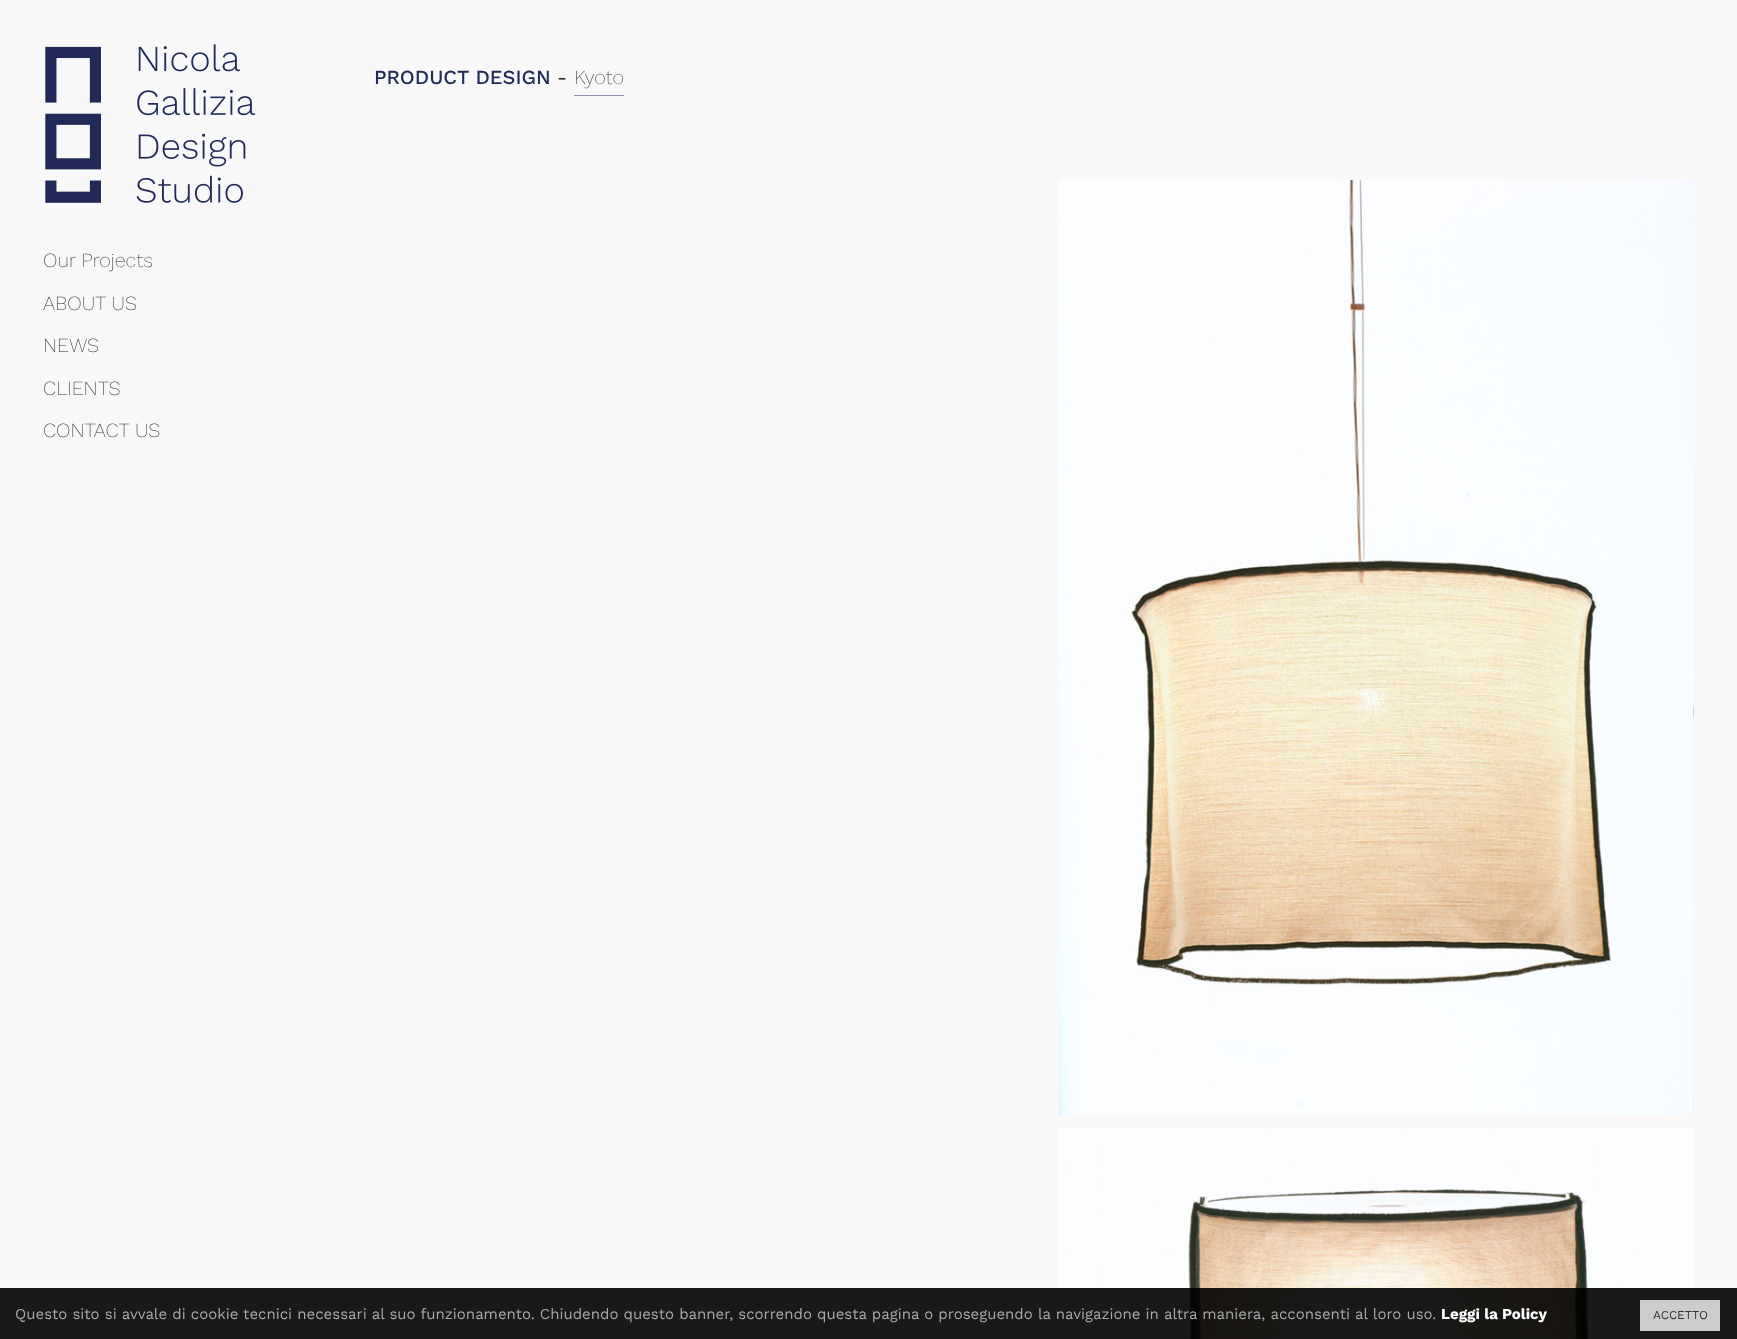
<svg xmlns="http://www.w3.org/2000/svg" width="1737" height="1339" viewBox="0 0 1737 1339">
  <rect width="100%" height="100%" fill="#f8f8f8"/>
  <text x="374" y="84" font-family="Work Sans" font-size="20" font-weight="500" fill="#202c56">PRODUCT DESIGN</text>
  <text x="557" y="84" font-family="Work Sans" font-size="20" fill="#2d2d2d">-</text>
  <text x="574" y="84" font-family="Work Sans" font-size="20" font-weight="200" fill="#2d2d2d">Kyoto</text>
  <rect x="574" y="95" width="50" height="1" fill="#8c92a7"/>
  <image x="1693" y="180" width="1" height="935" href="img1.png"/>
  <image x="1058" y="180" width="636" height="935" href="img2.png"/>
  <image x="1059" y="1128" width="635" height="211" href="img3.png"/>
  <image x="1188" y="1188" width="506" height="151" href="img4.png"/>
  <image x="45" y="44" width="210" height="159" href="img5.png"/>
  <text x="43" y="267" font-family="Work Sans" font-size="20" font-weight="200" fill="#2d2d2d">Our Projects</text>
  <text x="43" y="310" font-family="Work Sans" font-size="20" font-weight="200" fill="#2d2d2d">ABOUT US</text>
  <text x="43" y="352" font-family="Work Sans" font-size="20" font-weight="200" fill="#2d2d2d">NEWS</text>
  <text x="43" y="395" font-family="Work Sans" font-size="20" font-weight="200" fill="#2d2d2d">CLIENTS</text>
  <text x="43" y="437" font-family="Work Sans" font-size="20" font-weight="200" fill="#2d2d2d">CONTACT US</text>
  <rect x="0" y="1288" width="1737" height="51" fill="#000000" fill-opacity="0.9"/>
  <text x="15" y="1319" font-family="Work Sans" font-size="15" fill="#a9a9a9">Questo sito si avvale di cookie tecnici necessari al suo funzionamento. Chiudendo questo banner, scorrendo questa pagina o proseguendo la navigazione in altra maniera, acconsenti al loro uso.</text>
  <text x="1441" y="1319" font-family="Work Sans" font-size="15" font-weight="bold" fill="#ffffff">Leggi la Policy</text>
  <rect x="1640" y="1300" width="80" height="31" fill="#cccccc"/>
  <text x="1653" y="1319" font-family="Work Sans" font-size="12" fill="#333333">ACCETTO</text>
</svg>
